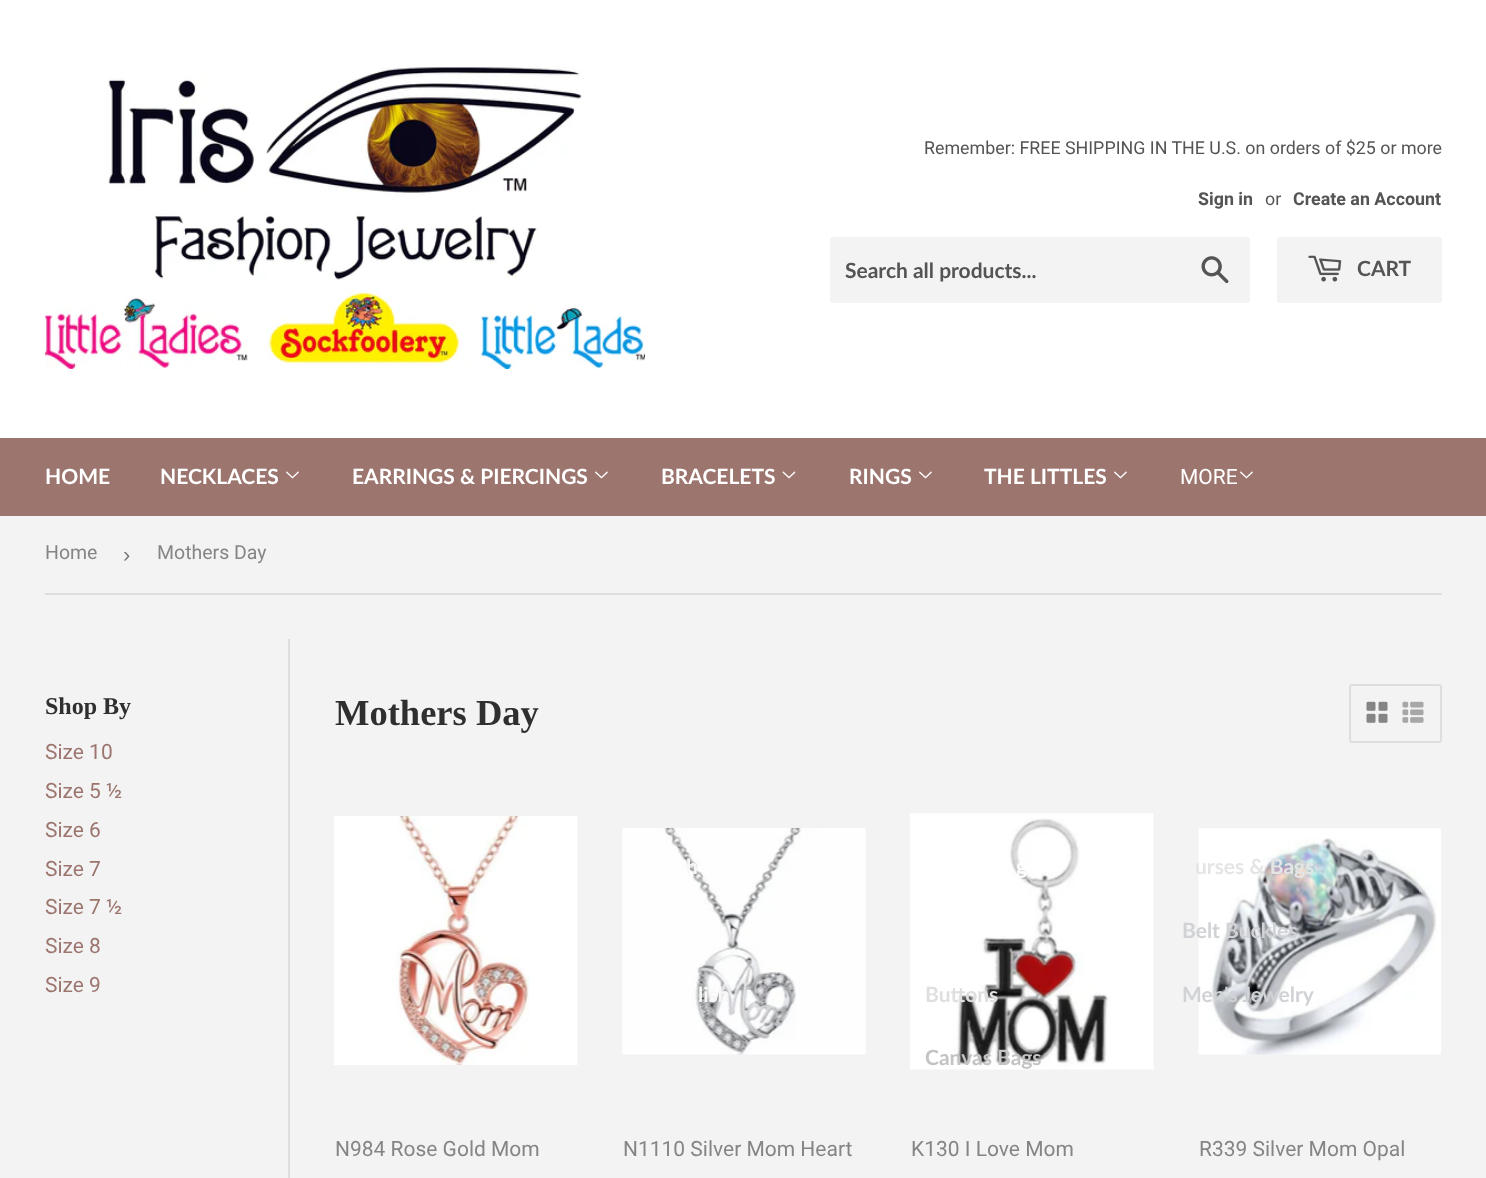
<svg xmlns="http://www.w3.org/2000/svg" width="1486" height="1178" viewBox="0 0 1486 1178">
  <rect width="100%" height="100%" fill="#f3f3f3"/>
  <rect x="0" y="0" width="1486" height="438" fill="#ffffff"/>
  <image x="45" y="67" width="600" height="302" href="img1.png"/>
  <text x="924" y="154" font-family="Roboto" font-size="17.85" fill="#545454">Remember: FREE SHIPPING IN THE U.S. on orders of $25 or more</text>
  <text x="1198" y="205" font-family="Roboto" font-size="17.85" font-weight="bold" fill="#545454">Sign in</text>
  <text x="1265" y="205" font-family="Roboto" font-size="17.85" fill="#545454">or</text>
  <text x="1293" y="205" font-family="Roboto" font-size="17.85" font-weight="bold" fill="#545454">Create an Account</text>
  <rect x="830" y="237" width="420" height="66" rx="3" fill="#f3f3f3"/>
  <text x="845" y="278" font-family="Lato" font-size="21" font-weight="bold" fill="#545454">Search all products...</text>
  <image x="1201" y="256" width="28" height="28" href="img2.png"/>
  <rect x="1277" y="237" width="165" height="66" rx="3" fill="#f3f3f3"/>
  <image x="1308" y="255" width="34" height="27" href="img3.png"/>
  <text x="1357" y="276" font-family="Lato" font-size="21" font-weight="bold" fill="#545454">CART</text>
  <rect x="0" y="438" width="1486" height="78" fill="#9c756f"/>
  <text x="45" y="484" font-family="Lato" font-size="21" font-weight="bold" fill="#ffffff">HOME</text>
  <text x="160" y="484" font-family="Lato" font-size="21" font-weight="bold" fill="#ffffff">NECKLACES</text>
  <image x="286" y="471" width="13" height="8" href="img4.png"/>
  <text x="352" y="484" font-family="Lato" font-size="21" font-weight="bold" fill="#ffffff">EARRINGS &amp; PIERCINGS</text>
  <image x="595" y="471" width="13" height="8" href="img4.png"/>
  <text x="661" y="484" font-family="Lato" font-size="21" font-weight="bold" fill="#ffffff">BRACELETS</text>
  <image x="782" y="471" width="14" height="8" href="img5.png"/>
  <text x="1180" y="484" font-family="Roboto" font-size="21" fill="#ffffff">MORE</text>
  <image x="1240" y="471" width="13" height="8" href="img4.png"/>
  <image x="622" y="828" width="244" height="227" href="img9.png"/>
  <text x="686" y="874" font-family="Lato" font-size="21" font-weight="bold" fill="#f7f7f7">h</text>
  <text x="698" y="1002" font-family="Lato" font-size="21" font-weight="bold" fill="#f7f7f7">lish</text>
  <image x="910" y="813" width="244" height="257" href="img10.png"/>
  <text x="1016" y="874" font-family="Lato" font-size="21" font-weight="bold" fill="#ffffff">g</text>
  <text x="925" y="1002" font-family="Lato" font-size="21" font-weight="bold" fill="#dfdfdf">Buttons</text>
  <text x="925" y="1065" font-family="Lato" font-size="21" font-weight="bold" fill="#c4c3c4">Canvas Bags</text>
  <image x="1198" y="828" width="243" height="227" href="img11.png"/>
  <text x="1195" y="874" font-family="Lato" font-size="21" font-weight="bold" fill="#e4e5e7">urses &amp; Bags</text>
  <text x="1182" y="938" font-family="Lato" font-size="21" font-weight="bold" fill="#d0d2d5">Belt Buckles</text>
  <text x="1182" y="1002" font-family="Lato" font-size="21" font-weight="bold" fill="#d0d2d5">Men's Jewelry</text>
  <text x="849" y="484" font-family="Lato" font-size="21" font-weight="bold" fill="#ffffff">RINGS</text>
  <image x="919" y="471" width="13" height="8" href="img4.png"/>
  <text x="984" y="484" font-family="Lato" font-size="21" font-weight="bold" fill="#ffffff">THE LITTLES</text>
  <image x="1114" y="471" width="13" height="8" href="img4.png"/>
  <rect x="45" y="593" width="1397" height="2" fill="#dedede"/>
  <text x="45" y="559" font-family="Roboto" font-size="19.5" fill="#858585">Home</text>
  <text x="123" y="562" font-family="Liberation Sans" font-size="22" fill="#767676">›</text>
  <text x="157" y="559" font-family="Roboto" font-size="19.5" fill="#858585">Mothers Day</text>
  <text x="45" y="714" font-family="Liberation Serif" font-size="24" font-weight="bold" fill="#2f2f2f">Shop By</text>
  <text x="45" y="759" font-family="Roboto" font-size="21" fill="#9c756f">Size 10</text>
  <text x="45" y="798" font-family="Roboto" font-size="21" fill="#9c756f">Size 5 ½</text>
  <text x="45" y="837" font-family="Roboto" font-size="21" fill="#9c756f">Size 6</text>
  <text x="45" y="876" font-family="Roboto" font-size="21" fill="#9c756f">Size 7</text>
  <text x="45" y="914" font-family="Roboto" font-size="21" fill="#9c756f">Size 7 ½</text>
  <text x="45" y="953" font-family="Roboto" font-size="21" fill="#9c756f">Size 8</text>
  <text x="45" y="992" font-family="Roboto" font-size="21" fill="#9c756f">Size 9</text>
  <rect x="288" y="639" width="2" height="539" fill="#dedede"/>
  <text x="335" y="725" font-family="Liberation Serif" font-size="36.5" font-weight="bold" fill="#2f2f2f">Mothers Day</text>
  <rect x="1350" y="685" width="91" height="57" rx="2" fill="none" stroke="#dedede" stroke-width="2"/>
  <image x="1366" y="701" width="22" height="22" href="img6.png"/>
  <image x="1402" y="701" width="22" height="22" href="img7.png"/>
  <image x="334" y="816" width="244" height="249" href="img8.png"/>
  <text x="335" y="1156" font-family="Roboto" font-size="21" fill="#858585">N984 Rose Gold Mom</text>
  <text x="623" y="1156" font-family="Roboto" font-size="21" fill="#858585">N1110 Silver Mom Heart</text>
  <text x="911" y="1156" font-family="Roboto" font-size="21" fill="#858585">K130 I Love Mom</text>
  <text x="1199" y="1156" font-family="Roboto" font-size="21" fill="#858585">R339 Silver Mom Opal</text>
</svg>
